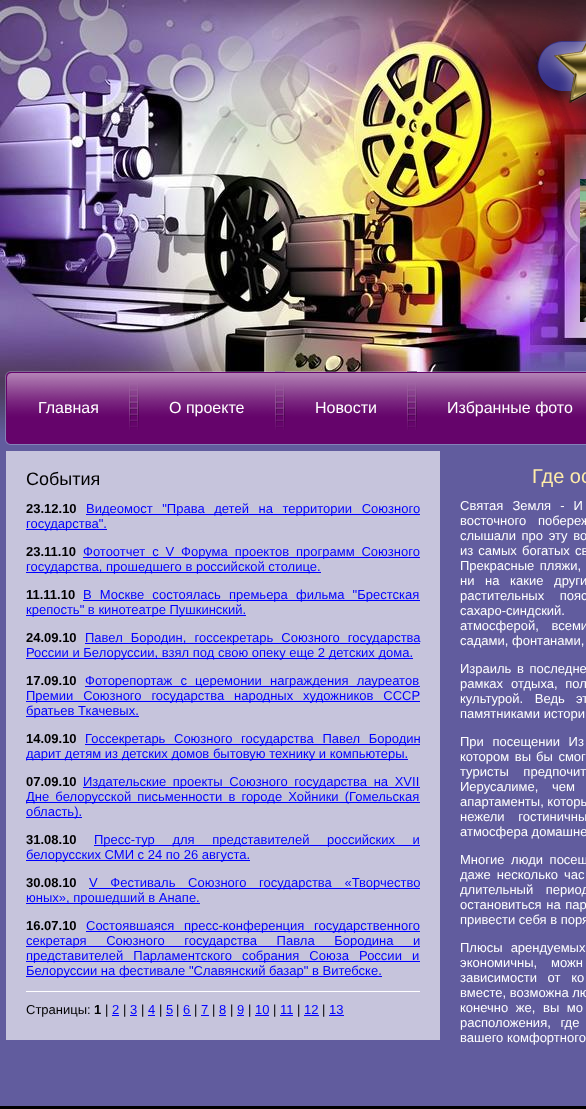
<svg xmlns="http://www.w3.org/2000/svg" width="586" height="1109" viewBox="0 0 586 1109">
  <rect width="100%" height="100%" fill="#000000"/>
  <image x="0" y="0" width="586" height="371" href="img1.png"/>
  <image x="538" y="10" width="48" height="112" href="img2.png"/>
  <image x="580" y="179" width="6" height="143" href="img3.png"/>
  <image x="0" y="371" width="586" height="74" href="img4.png"/>
  <text x="38" y="413" font-family="Liberation Sans" font-size="16" fill="#ffffff">Главная</text>
  <image x="129" y="371" width="10" height="59" href="img5.png"/>
  <text x="169" y="413" font-family="Liberation Sans" font-size="16" fill="#ffffff">О проекте</text>
  <image x="275" y="371" width="10" height="59" href="img5.png"/>
  <text x="315" y="413" font-family="Liberation Sans" font-size="16" fill="#ffffff">Новости</text>
  <image x="407" y="371" width="10" height="59" href="img5.png"/>
  <text x="447" y="413" font-family="Liberation Sans" font-size="16" fill="#ffffff">Избранные фото</text>
  <rect x="0" y="445" width="586" height="661" fill="#615c9e"/>
  <rect x="6" y="451" width="434" height="589" fill="#c6c4dc"/>
  <text x="26" y="485" font-family="Liberation Sans" font-size="18" fill="#000000">События</text>
  <text x="26" y="513" font-family="Liberation Sans" font-size="13" font-weight="bold" fill="#000000">23.12.10</text>
  <rect x="86" y="514" width="334" height="1" fill="#0000ff"/>
  <text x="86" y="513" word-spacing="6" font-family="Liberation Sans" font-size="13" fill="#0000ff">Видеомост "Права детей на территории Союзного</text>
  <rect x="26" y="529" width="81" height="1" fill="#0000ff"/>
  <text x="26" y="528" font-family="Liberation Sans" font-size="13" fill="#0000ff">государства".</text>
  <text x="26" y="556" font-family="Liberation Sans" font-size="13" font-weight="bold" fill="#000000">23.11.10</text>
  <rect x="83" y="557" width="337" height="1" fill="#0000ff"/>
  <text x="83" y="556" word-spacing="3.25" font-family="Liberation Sans" font-size="13" fill="#0000ff">Фотоотчет с V Форума проектов программ Союзного</text>
  <rect x="26" y="572" width="295" height="1" fill="#0000ff"/>
  <text x="26" y="571" font-family="Liberation Sans" font-size="13" fill="#0000ff">государства, прошедшего в российской столице.</text>
  <text x="26" y="599" font-family="Liberation Sans" font-size="13" font-weight="bold" fill="#000000">11.11.10</text>
  <rect x="83" y="600" width="337" height="1" fill="#0000ff"/>
  <text x="83" y="599" word-spacing="4.5" font-family="Liberation Sans" font-size="13" fill="#0000ff">В Москве состоялась премьера фильма "Брестская</text>
  <rect x="26" y="615" width="220" height="1" fill="#0000ff"/>
  <text x="26" y="614" font-family="Liberation Sans" font-size="13" fill="#0000ff">крепость" в кинотеатре Пушкинский.</text>
  <text x="26" y="642" font-family="Liberation Sans" font-size="13" font-weight="bold" fill="#000000">24.09.10</text>
  <rect x="85" y="643" width="335" height="1" fill="#0000ff"/>
  <text x="85" y="642" word-spacing="4.5" font-family="Liberation Sans" font-size="13" fill="#0000ff">Павел Бородин, госсекретарь Союзного государства</text>
  <rect x="26" y="658" width="387" height="1" fill="#0000ff"/>
  <text x="26" y="657" font-family="Liberation Sans" font-size="13" fill="#0000ff">России и Белоруссии, взял под свою опеку еще 2 детских дома.</text>
  <text x="26" y="685" font-family="Liberation Sans" font-size="13" font-weight="bold" fill="#000000">17.09.10</text>
  <rect x="85" y="686" width="335" height="1" fill="#0000ff"/>
  <text x="85" y="685" word-spacing="4.5" font-family="Liberation Sans" font-size="13" fill="#0000ff">Фоторепортаж с церемонии награждения лауреатов</text>
  <rect x="26" y="701" width="394" height="1" fill="#0000ff"/>
  <text x="26" y="700" word-spacing="6.25" font-family="Liberation Sans" font-size="13" fill="#0000ff">Премии Союзного государства народных художников СССР</text>
  <rect x="26" y="716" width="113" height="1" fill="#0000ff"/>
  <text x="26" y="715" font-family="Liberation Sans" font-size="13" fill="#0000ff">братьев Ткачевых.</text>
  <text x="26" y="743" font-family="Liberation Sans" font-size="13" font-weight="bold" fill="#000000">14.09.10</text>
  <rect x="85" y="744" width="335" height="1" fill="#0000ff"/>
  <text x="85" y="743" word-spacing="5" font-family="Liberation Sans" font-size="13" fill="#0000ff">Госсекретарь Союзного государства Павел Бородин</text>
  <rect x="26" y="759" width="382" height="1" fill="#0000ff"/>
  <text x="26" y="758" font-family="Liberation Sans" font-size="13" fill="#0000ff">дарит детям из детских домов бытовую технику и компьютеры.</text>
  <text x="26" y="786" font-family="Liberation Sans" font-size="13" font-weight="bold" fill="#000000">07.09.10</text>
  <rect x="83" y="787" width="337" height="1" fill="#0000ff"/>
  <text x="83" y="786" word-spacing="3" font-family="Liberation Sans" font-size="13" fill="#0000ff">Издательские проекты Союзного государства на XVII</text>
  <rect x="26" y="802" width="394" height="1" fill="#0000ff"/>
  <text x="26" y="801" word-spacing="2.5" font-family="Liberation Sans" font-size="13" fill="#0000ff">Дне белорусской письменности в городе Хойники (Гомельская</text>
  <rect x="26" y="817" width="56" height="1" fill="#0000ff"/>
  <text x="26" y="816" font-family="Liberation Sans" font-size="13" fill="#0000ff">область).</text>
  <text x="26" y="844" font-family="Liberation Sans" font-size="13" font-weight="bold" fill="#000000">31.08.10</text>
  <rect x="94" y="845" width="326" height="1" fill="#0000ff"/>
  <text x="94" y="844" word-spacing="14" font-family="Liberation Sans" font-size="13" fill="#0000ff">Пресс-тур для представителей российских и</text>
  <rect x="26" y="860" width="224" height="1" fill="#0000ff"/>
  <text x="26" y="859" font-family="Liberation Sans" font-size="13" fill="#0000ff">белорусских СМИ с 24 по 26 августа.</text>
  <text x="26" y="887" font-family="Liberation Sans" font-size="13" font-weight="bold" fill="#000000">30.08.10</text>
  <rect x="89" y="888" width="331" height="1" fill="#0000ff"/>
  <text x="89" y="887" word-spacing="9" font-family="Liberation Sans" font-size="13" fill="#0000ff">V Фестиваль Союзного государства «Творчество</text>
  <rect x="26" y="903" width="174" height="1" fill="#0000ff"/>
  <text x="26" y="902" font-family="Liberation Sans" font-size="13" fill="#0000ff">юных», прошедший в Анапе.</text>
  <text x="26" y="930" font-family="Liberation Sans" font-size="13" font-weight="bold" fill="#000000">16.07.10</text>
  <rect x="86" y="931" width="334" height="1" fill="#0000ff"/>
  <text x="86" y="930" word-spacing="6" font-family="Liberation Sans" font-size="13" fill="#0000ff">Состоявшаяся пресс-конференция государственного</text>
  <rect x="26" y="946" width="394" height="1" fill="#0000ff"/>
  <text x="26" y="945" word-spacing="16" font-family="Liberation Sans" font-size="13" fill="#0000ff">секретаря Союзного государства Павла Бородина и</text>
  <rect x="26" y="961" width="394" height="1" fill="#0000ff"/>
  <text x="26" y="960" word-spacing="6.5" font-family="Liberation Sans" font-size="13" fill="#0000ff">представителей Парламентского собрания Союза России и</text>
  <rect x="26" y="976" width="356" height="1" fill="#0000ff"/>
  <text x="26" y="975" font-family="Liberation Sans" font-size="13" fill="#0000ff">Белоруссии на фестивале "Славянский базар" в Витебске.</text>
  <rect x="26" y="991" width="394" height="1" fill="#ffffff"/>
  <text x="26" y="1014" font-family="Liberation Sans" font-size="13" fill="#000000">Страницы:</text>
  <text x="94" y="1014" font-family="Liberation Sans" font-size="13" font-weight="bold" fill="#000000">1</text>
  <text x="105" y="1014" font-family="Liberation Sans" font-size="13" fill="#000000">|</text>
  <text x="112" y="1014" font-family="Liberation Sans" font-size="13" fill="#0000ff">2</text>
  <rect x="112" y="1015" width="7" height="1" fill="#0000ff"/>
  <text x="123" y="1014" font-family="Liberation Sans" font-size="13" fill="#000000">|</text>
  <text x="130" y="1014" font-family="Liberation Sans" font-size="13" fill="#0000ff">3</text>
  <rect x="130" y="1015" width="7" height="1" fill="#0000ff"/>
  <text x="141" y="1014" font-family="Liberation Sans" font-size="13" fill="#000000">|</text>
  <text x="148" y="1014" font-family="Liberation Sans" font-size="13" fill="#0000ff">4</text>
  <rect x="148" y="1015" width="7" height="1" fill="#0000ff"/>
  <text x="159" y="1014" font-family="Liberation Sans" font-size="13" fill="#000000">|</text>
  <text x="166" y="1014" font-family="Liberation Sans" font-size="13" fill="#0000ff">5</text>
  <rect x="166" y="1015" width="7" height="1" fill="#0000ff"/>
  <text x="176" y="1014" font-family="Liberation Sans" font-size="13" fill="#000000">|</text>
  <text x="183" y="1014" font-family="Liberation Sans" font-size="13" fill="#0000ff">6</text>
  <rect x="183" y="1015" width="8" height="1" fill="#0000ff"/>
  <text x="194" y="1014" font-family="Liberation Sans" font-size="13" fill="#000000">|</text>
  <text x="201" y="1014" font-family="Liberation Sans" font-size="13" fill="#0000ff">7</text>
  <rect x="201" y="1015" width="8" height="1" fill="#0000ff"/>
  <text x="212" y="1014" font-family="Liberation Sans" font-size="13" fill="#000000">|</text>
  <text x="219" y="1014" font-family="Liberation Sans" font-size="13" fill="#0000ff">8</text>
  <rect x="219" y="1015" width="7" height="1" fill="#0000ff"/>
  <text x="230" y="1014" font-family="Liberation Sans" font-size="13" fill="#000000">|</text>
  <text x="237" y="1014" font-family="Liberation Sans" font-size="13" fill="#0000ff">9</text>
  <rect x="237" y="1015" width="7" height="1" fill="#0000ff"/>
  <text x="248" y="1014" font-family="Liberation Sans" font-size="13" fill="#000000">|</text>
  <text x="255" y="1014" font-family="Liberation Sans" font-size="13" fill="#0000ff">10</text>
  <rect x="255" y="1015" width="14" height="1" fill="#0000ff"/>
  <text x="273" y="1014" font-family="Liberation Sans" font-size="13" fill="#000000">|</text>
  <text x="280" y="1014" font-family="Liberation Sans" font-size="13" fill="#0000ff">11</text>
  <rect x="280" y="1015" width="13" height="1" fill="#0000ff"/>
  <text x="297" y="1014" font-family="Liberation Sans" font-size="13" fill="#000000">|</text>
  <text x="304" y="1014" font-family="Liberation Sans" font-size="13" fill="#0000ff">12</text>
  <rect x="304" y="1015" width="15" height="1" fill="#0000ff"/>
  <text x="322" y="1014" font-family="Liberation Sans" font-size="13" fill="#000000">|</text>
  <text x="329" y="1014" font-family="Liberation Sans" font-size="13" fill="#0000ff">13</text>
  <rect x="329" y="1015" width="15" height="1" fill="#0000ff"/>
  <text x="532" y="483" font-family="Liberation Sans" font-size="20" fill="#ffeca9">Где ос</text>
  <text x="460" y="510" word-spacing="5.5" font-family="Liberation Sans" font-size="13" fill="#ffffff">Святая Земля - И</text>
  <text x="460" y="525" font-family="Liberation Sans" font-size="13" fill="#ffffff">восточного</text>
  <text x="538" y="525" word-spacing="9" font-family="Liberation Sans" font-size="13" fill="#ffffff">побереж</text>
  <text x="460" y="540" word-spacing="2" font-family="Liberation Sans" font-size="13" fill="#ffffff">слышали про эту во</text>
  <text x="460" y="555" word-spacing="1.5" font-family="Liberation Sans" font-size="13" fill="#ffffff">из самых богатых св</text>
  <text x="460" y="570" word-spacing="2" font-family="Liberation Sans" font-size="13" fill="#ffffff">Прекрасные пляжи,</text>
  <text x="460" y="585" word-spacing="7" font-family="Liberation Sans" font-size="13" fill="#ffffff">ни на какие други</text>
  <text x="460" y="600" word-spacing="12" font-family="Liberation Sans" font-size="13" fill="#ffffff">растительных пояс</text>
  <text x="460" y="615" font-family="Liberation Sans" font-size="13" fill="#ffffff">сахаро-синдский.</text>
  <text x="460" y="630" word-spacing="9" font-family="Liberation Sans" font-size="13" fill="#ffffff">атмосферой, всеми</text>
  <text x="460" y="645" font-family="Liberation Sans" font-size="13" fill="#ffffff">садами, фонтанами,</text>
  <text x="460" y="673" word-spacing="2" font-family="Liberation Sans" font-size="13" fill="#ffffff">Израиль в последне</text>
  <text x="460" y="688" font-family="Liberation Sans" font-size="13" fill="#ffffff">рамках</text>
  <text x="511" y="688" word-spacing="4" font-family="Liberation Sans" font-size="13" fill="#ffffff">отдыха, пол</text>
  <text x="460" y="703" word-spacing="8" font-family="Liberation Sans" font-size="13" fill="#ffffff">культурой. Ведь</text>
  <text x="576" y="703" word-spacing="8" font-family="Liberation Sans" font-size="13" fill="#ffffff">эт</text>
  <text x="460" y="718" font-family="Liberation Sans" font-size="13" fill="#ffffff">памятниками истори</text>
  <text x="460" y="746" word-spacing="5" font-family="Liberation Sans" font-size="13" fill="#ffffff">При посещении Из</text>
  <text x="460" y="761" word-spacing="2" font-family="Liberation Sans" font-size="13" fill="#ffffff">котором вы</text>
  <text x="536" y="761" word-spacing="2" font-family="Liberation Sans" font-size="13" fill="#ffffff">бы смог</text>
  <text x="460" y="776" word-spacing="11" font-family="Liberation Sans" font-size="13" fill="#ffffff">туристы предпочит</text>
  <text x="460" y="791" word-spacing="10" font-family="Liberation Sans" font-size="13" fill="#ffffff">Иерусалиме, чем</text>
  <text x="460" y="806" font-family="Liberation Sans" font-size="13" fill="#ffffff">апартаменты, которы</text>
  <text x="460" y="821" word-spacing="10" font-family="Liberation Sans" font-size="13" fill="#ffffff">нежели гостиничны</text>
  <text x="460" y="836" font-family="Liberation Sans" font-size="13" fill="#ffffff">атмосфера домашне</text>
  <text x="460" y="864" word-spacing="3" font-family="Liberation Sans" font-size="13" fill="#ffffff">Многие люди посещ</text>
  <text x="460" y="879" word-spacing="2.5" font-family="Liberation Sans" font-size="13" fill="#ffffff">даже несколько</text>
  <text x="564" y="879" word-spacing="2.5" font-family="Liberation Sans" font-size="13" fill="#ffffff">час</text>
  <text x="460" y="894" word-spacing="9" font-family="Liberation Sans" font-size="13" fill="#ffffff">длительный период</text>
  <text x="460" y="909" word-spacing="1" font-family="Liberation Sans" font-size="13" fill="#ffffff">остановиться на пар</text>
  <text x="460" y="924" font-family="Liberation Sans" font-size="13" fill="#ffffff">привести себя в поря</text>
  <text x="460" y="952" word-spacing="4.5" font-family="Liberation Sans" font-size="13" fill="#ffffff">Плюсы арендуемых</text>
  <text x="460" y="967" font-family="Liberation Sans" font-size="13" fill="#ffffff">экономичны,</text>
  <text x="551" y="967" word-spacing="10" font-family="Liberation Sans" font-size="13" fill="#ffffff">можн</text>
  <text x="460" y="982" word-spacing="7" font-family="Liberation Sans" font-size="13" fill="#ffffff">зависимости от ко</text>
  <text x="460" y="997" font-family="Liberation Sans" font-size="13" fill="#ffffff">вместе, возможна лю</text>
  <text x="460" y="1012" word-spacing="4" font-family="Liberation Sans" font-size="13" fill="#ffffff">конечно же, вы мо</text>
  <text x="460" y="1027" word-spacing="6" font-family="Liberation Sans" font-size="13" fill="#ffffff">расположения, где</text>
  <text x="460" y="1042" font-family="Liberation Sans" font-size="13" fill="#ffffff">вашего комфортного</text>
</svg>
